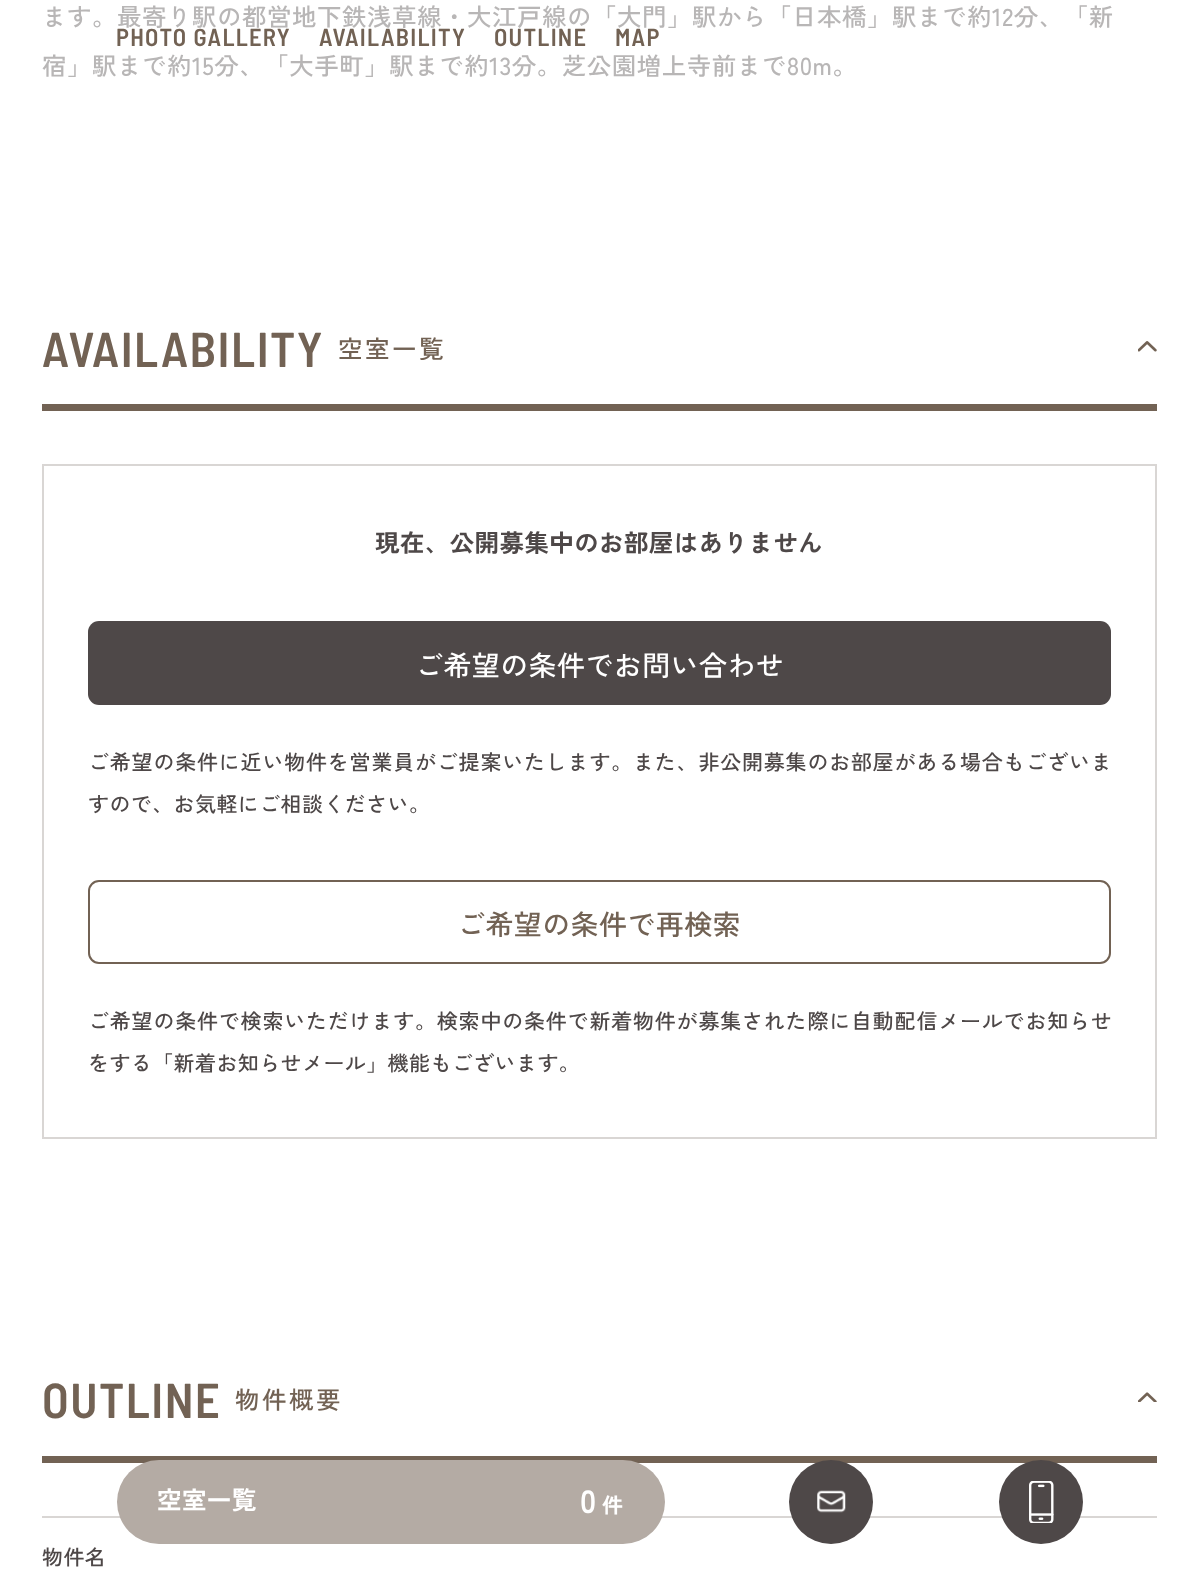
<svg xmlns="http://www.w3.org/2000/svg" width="1198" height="1571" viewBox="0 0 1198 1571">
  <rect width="100%" height="100%" fill="#ffffff"/>
  <text x="42" y="26" font-family="Zen Kaku Gothic New" font-size="24.5" font-weight="500" letter-spacing="0.5" fill="#b8b6b6">ます。最寄り駅の都営地下鉄浅草線・大江戸線の「大門」駅から「日本橋」駅まで約12分、「新</text>
  <text x="42" y="75" font-family="Zen Kaku Gothic New" font-size="24.5" font-weight="500" letter-spacing="0.5" fill="#b8b6b6">宿」駅まで約15分、「大手町」駅まで約13分。芝公園増上寺前まで80m。</text>
  <rect x="42" y="404" width="1115" height="7" fill="#726254"/>
  <text x="42" y="367" font-family="Barlow Semi Condensed" font-size="49" font-weight="600" letter-spacing="1.5" fill="#726254">AVAILABILITY</text>
  <text x="338" y="358" font-family="Zen Kaku Gothic New" font-size="24.5" font-weight="500" letter-spacing="2.5" fill="#726254">空室一覧</text>
  <image x="1138" y="341" width="19" height="11" href="img1.png"/>
  <rect x="43" y="465" width="1113" height="673" fill="none" stroke="#d9d6d4" stroke-width="2"/>
  <text x="375" y="552" font-family="Zen Kaku Gothic New" font-size="24.5" font-weight="bold" letter-spacing="0.4" fill="#4e4848">現在、公開募集中のお部屋はありません</text>
  <rect x="88" y="621" width="1023" height="84" rx="11" fill="#4e4848"/>
  <text x="415" y="676" font-family="Zen Kaku Gothic New" font-size="28" font-weight="500" letter-spacing="0.4" fill="#ffffff">ご希望の条件でお問い合わせ</text>
  <text x="88" y="770" font-family="Zen Kaku Gothic New" font-size="21" font-weight="500" letter-spacing="0.8" fill="#4e4848">ご希望の条件に近い物件を営業員がご提案いたします。また、非公開募集のお部屋がある場合もございま</text>
  <text x="88" y="812" font-family="Zen Kaku Gothic New" font-size="21" font-weight="500" letter-spacing="0.4" fill="#4e4848">すので、お気軽にご相談ください。</text>
  <rect x="89" y="881" width="1021" height="82" rx="10" fill="none" stroke="#726254" stroke-width="2"/>
  <text x="457" y="935" font-family="Zen Kaku Gothic New" font-size="28" font-weight="500" letter-spacing="0.4" fill="#726254">ご希望の条件で再検索</text>
  <text x="88" y="1029" font-family="Zen Kaku Gothic New" font-size="21" font-weight="500" letter-spacing="0.8" fill="#4e4848">ご希望の条件で検索いただけます。検索中の条件で新着物件が募集された際に自動配信メールでお知らせ</text>
  <text x="88" y="1071" font-family="Zen Kaku Gothic New" font-size="21" font-weight="500" letter-spacing="0.4" fill="#4e4848">をする「新着お知らせメール」機能もございます。</text>
  <rect x="42" y="1456" width="1115" height="7" fill="#726254"/>
  <text x="42" y="1418" font-family="Barlow Semi Condensed" font-size="49" font-weight="600" letter-spacing="1.5" fill="#726254">OUTLINE</text>
  <text x="235" y="1409" font-family="Zen Kaku Gothic New" font-size="24.5" font-weight="500" letter-spacing="2.5" fill="#726254">物件概要</text>
  <image x="1138" y="1392" width="19" height="10" href="img2.png"/>
  <rect x="42" y="1516" width="1115" height="2" fill="#d9d6d4"/>
  <text x="42" y="1565" font-family="Zen Kaku Gothic New" font-size="21" font-weight="500" letter-spacing="0.4" fill="#4e4848">物件名</text>
  <text x="116" y="46" font-family="Barlow Semi Condensed" font-size="24.5" font-weight="600" letter-spacing="1.25" fill="#726254">PHOTO GALLERY</text>
  <text x="319" y="46" font-family="Barlow Semi Condensed" font-size="24.5" font-weight="600" letter-spacing="1.25" fill="#726254">AVAILABILITY</text>
  <text x="494" y="46" font-family="Barlow Semi Condensed" font-size="24.5" font-weight="600" letter-spacing="1.25" fill="#726254">OUTLINE</text>
  <text x="615" y="46" font-family="Barlow Semi Condensed" font-size="24.5" font-weight="600" letter-spacing="1.25" fill="#726254">MAP</text>
  <rect x="117" y="1460" width="548" height="84" rx="42" fill="#b4aba4"/>
  <text x="157" y="1509" font-family="Zen Kaku Gothic New" font-size="24.5" font-weight="bold" letter-spacing="0.4" fill="#ffffff">空室一覧</text>
  <text x="580" y="1513" font-family="Zen Kaku Gothic New" font-size="32" font-weight="bold" letter-spacing="0.4" fill="#ffffff">0</text>
  <text x="602" y="1513" font-family="Zen Kaku Gothic New" font-size="21" font-weight="bold" letter-spacing="0.4" fill="#ffffff">件</text>
  <circle cx="831" cy="1502" r="42" fill="#4e4848"/>
  <image x="817" y="1490" width="29" height="23" href="img3.png"/>
  <circle cx="1041" cy="1502" r="42" fill="#4e4848"/>
  <image x="1029" y="1481" width="25" height="42" href="img4.png"/>
</svg>
